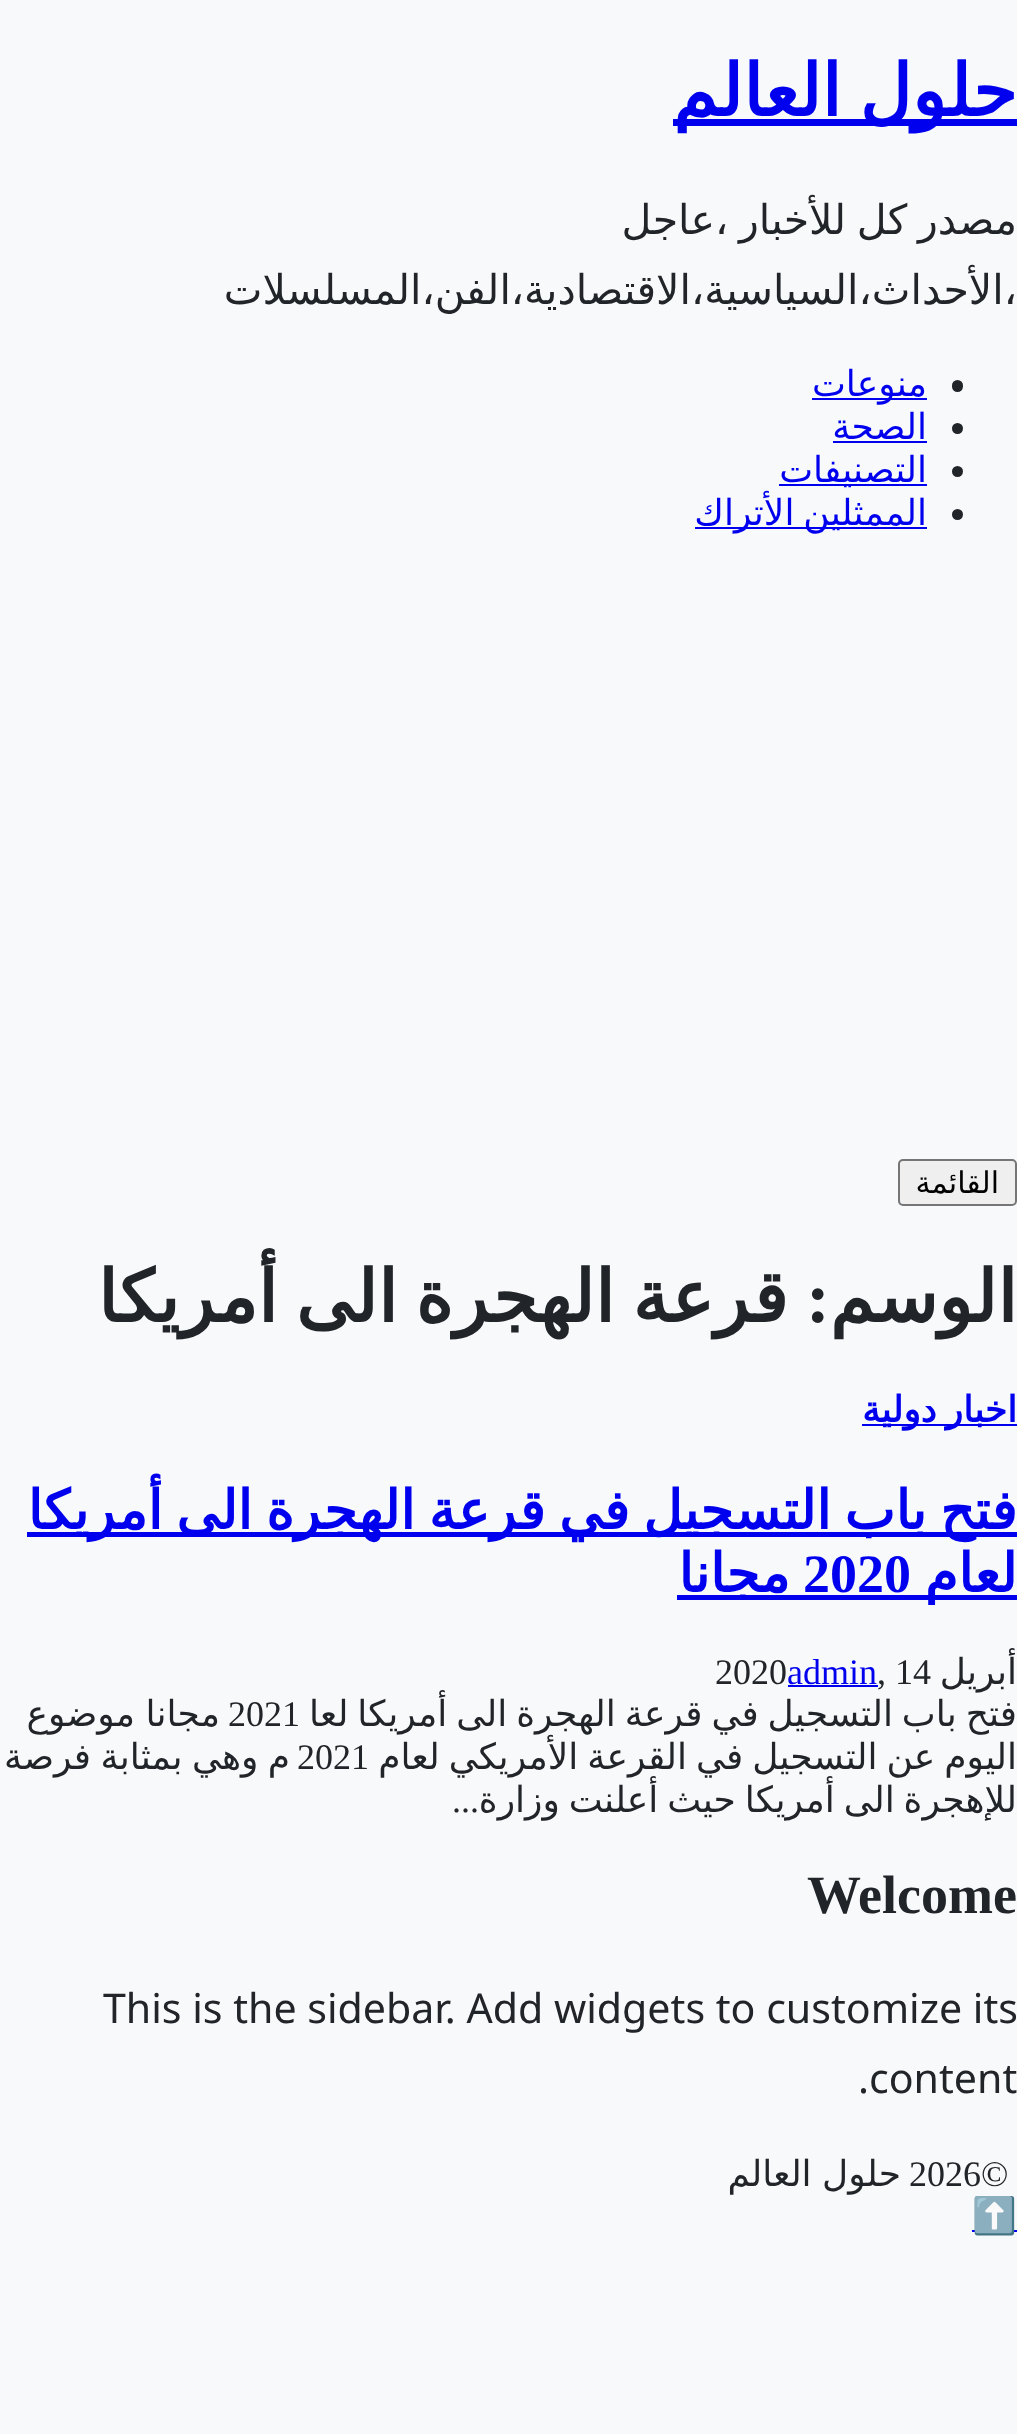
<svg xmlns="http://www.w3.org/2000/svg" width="1017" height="2434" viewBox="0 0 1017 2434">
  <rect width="100%" height="100%" fill="#f8f9fa"/>
  <rect x="673" y="119" width="344" height="7" fill="#0000ee"/>
  <text x="1017" y="116" word-spacing="-5" font-family="DejaVu Sans" font-size="72" font-weight="bold" direction="rtl" fill="#0000ee">حلول العالم</text>
  <text x="1017" y="234" word-spacing="-2.5" font-family="DejaVu Sans" font-size="41.1" direction="rtl" fill="#212529">مصدر كل للأخبار ،عاجل</text>
  <text x="1017" y="304" font-family="DejaVu Sans" font-size="41.1" direction="rtl" fill="#212529">،الأحداث،السياسية،الاقتصادية،الفن،المسلسلات</text>
  <rect x="952" y="380" width="11" height="12" rx="5.5" fill="#212529"/>
  <rect x="812" y="398" width="115" height="2" fill="#0000ee"/>
  <text x="927" y="396" font-family="DejaVu Sans" font-size="36" direction="rtl" fill="#0000ee">منوعات</text>
  <circle cx="957.5" cy="428.5" r="5.5" fill="#212529"/>
  <text x="927" y="439" font-family="DejaVu Sans" font-size="36" direction="rtl" fill="#0000ee">الصحة</text>
  <rect x="833" y="441" width="94" height="2" fill="#0000ee"/>
  <circle cx="957.5" cy="471.5" r="5.5" fill="#212529"/>
  <rect x="779" y="484" width="148" height="2" fill="#0000ee"/>
  <text x="927" y="482" font-family="DejaVu Sans" font-size="36" direction="rtl" fill="#0000ee">التصنيفات</text>
  <circle cx="957.5" cy="514.5" r="5.5" fill="#212529"/>
  <rect x="695" y="527" width="232" height="2" fill="#0000ee"/>
  <text x="927" y="525" word-spacing="-2.5" font-family="DejaVu Sans" font-size="36" direction="rtl" fill="#0000ee">الممثلين الأتراك</text>
  <rect x="899" y="1160" width="117" height="45" rx="4" fill="#efefef" stroke="#767676" stroke-width="2"/>
  <text x="999" y="1193" font-family="DejaVu Sans" font-size="30" direction="rtl" fill="#000000">القائمة</text>
  <text x="1017" y="1322" font-family="DejaVu Sans" font-size="72" font-weight="bold" direction="rtl" fill="#212529">الوسم</text>
  <text x="830" y="1322" font-family="Liberation Serif" font-size="72" font-weight="bold" direction="rtl" fill="#212529">:</text>
  <text x="788" y="1322" word-spacing="-5" font-family="DejaVu Sans" font-size="72" font-weight="bold" direction="rtl" fill="#212529">قرعة الهجرة الى أمريكا</text>
  <rect x="862" y="1424" width="155" height="2" fill="#0000ee"/>
  <text x="1017" y="1422" word-spacing="-2.5" font-family="DejaVu Sans" font-size="36" font-weight="bold" direction="rtl" fill="#0000ee">اخبار دولية</text>
  <rect x="27" y="1532" width="990" height="5" fill="#0000ee"/>
  <text x="1017" y="1529" word-spacing="-3.75" font-family="DejaVu Sans" font-size="54" font-weight="bold" direction="rtl" fill="#0000ee">فتح باب التسجيل في قرعة الهجرة الى أمريكا</text>
  <rect x="677" y="1595" width="340" height="5" fill="#0000ee"/>
  <text x="1017" y="1592" font-family="DejaVu Sans" font-size="54" font-weight="bold" direction="rtl" fill="#0000ee">لعام</text>
  <text x="803" y="1592" font-family="Liberation Serif" font-size="54" font-weight="bold" fill="#0000ee">2020</text>
  <text x="790" y="1592" font-family="DejaVu Sans" font-size="54" font-weight="bold" direction="rtl" fill="#0000ee">مجانا</text>
  <text x="1017" y="1684" font-family="DejaVu Sans" font-size="36" direction="rtl" fill="#212529">أبريل</text>
  <text x="877" y="1684" font-family="Liberation Serif" font-size="36" fill="#212529">, 14</text>
  <text x="787" y="1684" font-family="Liberation Serif" font-size="36" fill="#0000ee">admin</text>
  <rect x="788" y="1685" width="90" height="2" fill="#0000ee"/>
  <text x="715" y="1684" font-family="Liberation Serif" font-size="36" fill="#212529">2020</text>
  <text x="1017" y="1726" word-spacing="-2.5" font-family="DejaVu Sans" font-size="36" direction="rtl" fill="#212529">فتح باب التسجيل في قرعة الهجرة الى أمريكا لعا</text>
  <text x="228" y="1726" font-family="Liberation Serif" font-size="36" fill="#212529">2021</text>
  <text x="220" y="1726" word-spacing="-1" font-family="DejaVu Sans" font-size="36" direction="rtl" fill="#212529">مجانا موضوع</text>
  <text x="1017" y="1769" word-spacing="-2.5" font-family="DejaVu Sans" font-size="36" direction="rtl" fill="#212529">اليوم عن التسجيل في القرعة الأمريكي لعام</text>
  <text x="297" y="1769" font-family="Liberation Serif" font-size="36" fill="#212529">2021</text>
  <text x="290" y="1769" word-spacing="-2" font-family="DejaVu Sans" font-size="36" direction="rtl" fill="#212529">م وهي بمثابة فرصة</text>
  <text x="1017" y="1812" word-spacing="-2.5" font-family="DejaVu Sans" font-size="36" direction="rtl" fill="#212529">للإهجرة الى أمريكا حيث أعلنت وزارة</text>
  <text x="479" y="1812" font-family="Liberation Serif" font-size="36" direction="rtl" fill="#212529">...</text>
  <text x="807" y="1913" font-family="Liberation Serif" font-size="54" font-weight="bold" fill="#212529">Welcome</text>
  <text x="103" y="2023" font-family="Noto Sans" font-size="41.1" fill="#212529">This is the sidebar. Add widgets to customize its</text>
  <text x="858" y="2093" font-family="Noto Sans" font-size="41.1" fill="#212529">.content</text>
  <text x="909" y="2186" font-family="Liberation Serif" font-size="36" fill="#212529">2026©</text>
  <text x="901" y="2186" word-spacing="-1" font-family="DejaVu Sans" font-size="36" direction="rtl" fill="#212529">حلول العالم</text>
  <rect x="972" y="2230" width="45" height="2" fill="#0000ee"/>
  <text x="972" y="2228" font-family="Noto Color Emoji" font-size="36" fill="#0000ee">⬆️</text>
</svg>
